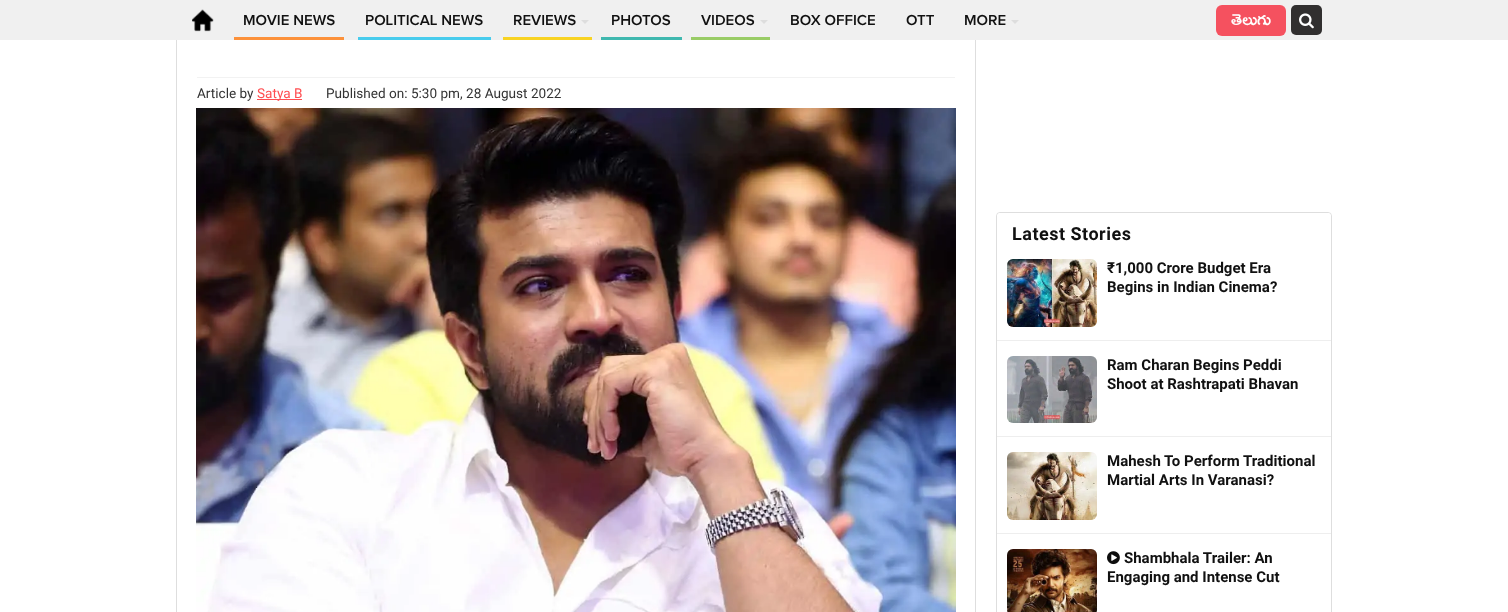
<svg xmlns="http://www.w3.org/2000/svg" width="1508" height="612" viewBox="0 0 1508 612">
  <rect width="100%" height="100%" fill="#ffffff"/>
  <rect x="176.5" y="-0.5" width="799" height="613" fill="none" stroke="#dedede"/>
  <rect x="0" y="0" width="1508" height="40" fill="#f0f0f0"/>
  <image x="192" y="9" width="22" height="23" href="img1.png"/>
  <text x="243" y="25" font-family="Proxima Nova" font-size="15" font-weight="600" fill="#111111">MOVIE NEWS</text>
  <rect x="234" y="37" width="110" height="3" fill="#fc913a"/>
  <text x="365" y="25" font-family="Proxima Nova" font-size="15" font-weight="600" fill="#111111">POLITICAL NEWS</text>
  <rect x="358" y="37" width="133" height="3" fill="#48cced"/>
  <text x="513" y="25" font-family="Proxima Nova" font-size="15" font-weight="600" fill="#111111">REVIEWS</text>
  <rect x="503" y="37" width="89" height="3" fill="#f8d323"/>
  <path d="M581 20H589L585 24Z" fill="#dddddd"/>
  <text x="611" y="25" font-family="Proxima Nova" font-size="15" font-weight="600" fill="#111111">PHOTOS</text>
  <rect x="601" y="37" width="81" height="3" fill="#3fb8af"/>
  <text x="701" y="25" font-family="Proxima Nova" font-size="15" font-weight="600" fill="#111111">VIDEOS</text>
  <rect x="691" y="37" width="79" height="3" fill="#99cc66"/>
  <path d="M760 20H768L764 24Z" fill="#dddddd"/>
  <text x="790" y="25" font-family="Proxima Nova" font-size="15" font-weight="600" fill="#111111">BOX OFFICE</text>
  <text x="906" y="25" font-family="Proxima Nova" font-size="15" font-weight="600" fill="#111111">OTT</text>
  <text x="964" y="25" font-family="Proxima Nova" font-size="15" font-weight="600" fill="#111111">MORE</text>
  <path d="M1011 20H1019L1015 24Z" fill="#dddddd"/>
  <rect x="1216" y="5" width="70" height="31" rx="6" fill="#f5515f"/>
  <text x="1231" y="25" font-family="Ramabhadra" font-size="18" fill="#ffffff">తెలుగు</text>
  <rect x="1291" y="5" width="31" height="30" rx="5" fill="#312f2f"/>
  <image x="1299" y="13" width="15" height="16" href="img2.png"/>
  <rect x="197" y="77" width="758" height="1" fill="#f2f2f2"/>
  <text x="197" y="98" font-family="Roboto" font-size="13.6" fill="#333333">Article by</text>
  <rect x="257" y="99" width="45" height="1" fill="#ff4e51"/>
  <text x="257" y="98" font-family="Roboto" font-size="13.6" fill="#ff4e51">Satya B</text>
  <text x="326" y="98" font-family="Roboto" font-size="13.6" fill="#333333">Published on: 5:30 pm, 28 August 2022</text>
  <image x="196" y="108" width="760" height="504" href="img3.png"/>
  <rect x="996.5" y="212.5" width="335" height="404" rx="3.5" fill="none" stroke="#dedede"/>
  <path d="M1000 213H1328C1329.5 213 1331 214.5 1331 216V244H997V216C997 214.5 998.5 213 1000 213Z" fill="#ffffff"/>
  <text x="1012" y="240" font-family="Roboto" font-size="18" font-weight="bold" letter-spacing="0.5" fill="#111111">Latest Stories</text>
  <rect x="997" y="340" width="334" height="1" fill="#eeeeee"/>
  <image x="1007" y="259" width="90" height="68" href="img4.png"/>
  <text x="1107" y="273" font-family="Roboto" font-size="15" font-weight="bold" fill="#111111">₹1,000 Crore Budget Era</text>
  <text x="1107" y="292" font-family="Roboto" font-size="15" font-weight="bold" fill="#111111">Begins in Indian Cinema?</text>
  <rect x="997" y="436" width="334" height="1" fill="#eeeeee"/>
  <image x="1007" y="356" width="90" height="67" href="img5.png"/>
  <text x="1107" y="370" font-family="Roboto" font-size="15" font-weight="bold" fill="#111111">Ram Charan Begins Peddi</text>
  <text x="1107" y="389" font-family="Roboto" font-size="15" font-weight="bold" fill="#111111">Shoot at Rashtrapati Bhavan</text>
  <rect x="997" y="533" width="334" height="1" fill="#eeeeee"/>
  <image x="1007" y="452" width="90" height="68" href="img6.png"/>
  <text x="1107" y="466" font-family="Roboto" font-size="15" font-weight="bold" fill="#111111">Mahesh To Perform Traditional</text>
  <text x="1107" y="485" font-family="Roboto" font-size="15" font-weight="bold" fill="#111111">Martial Arts In Varanasi?</text>
  <image x="1007" y="549" width="90" height="63" href="img7.png"/>
  <image x="1107" y="551" width="13" height="14" href="img8.png"/>
  <text x="1124" y="563" font-family="Roboto" font-size="15" font-weight="bold" fill="#111111">Shambhala Trailer: An</text>
  <text x="1107" y="582" font-family="Roboto" font-size="15" font-weight="bold" fill="#111111">Engaging and Intense Cut</text>
</svg>
